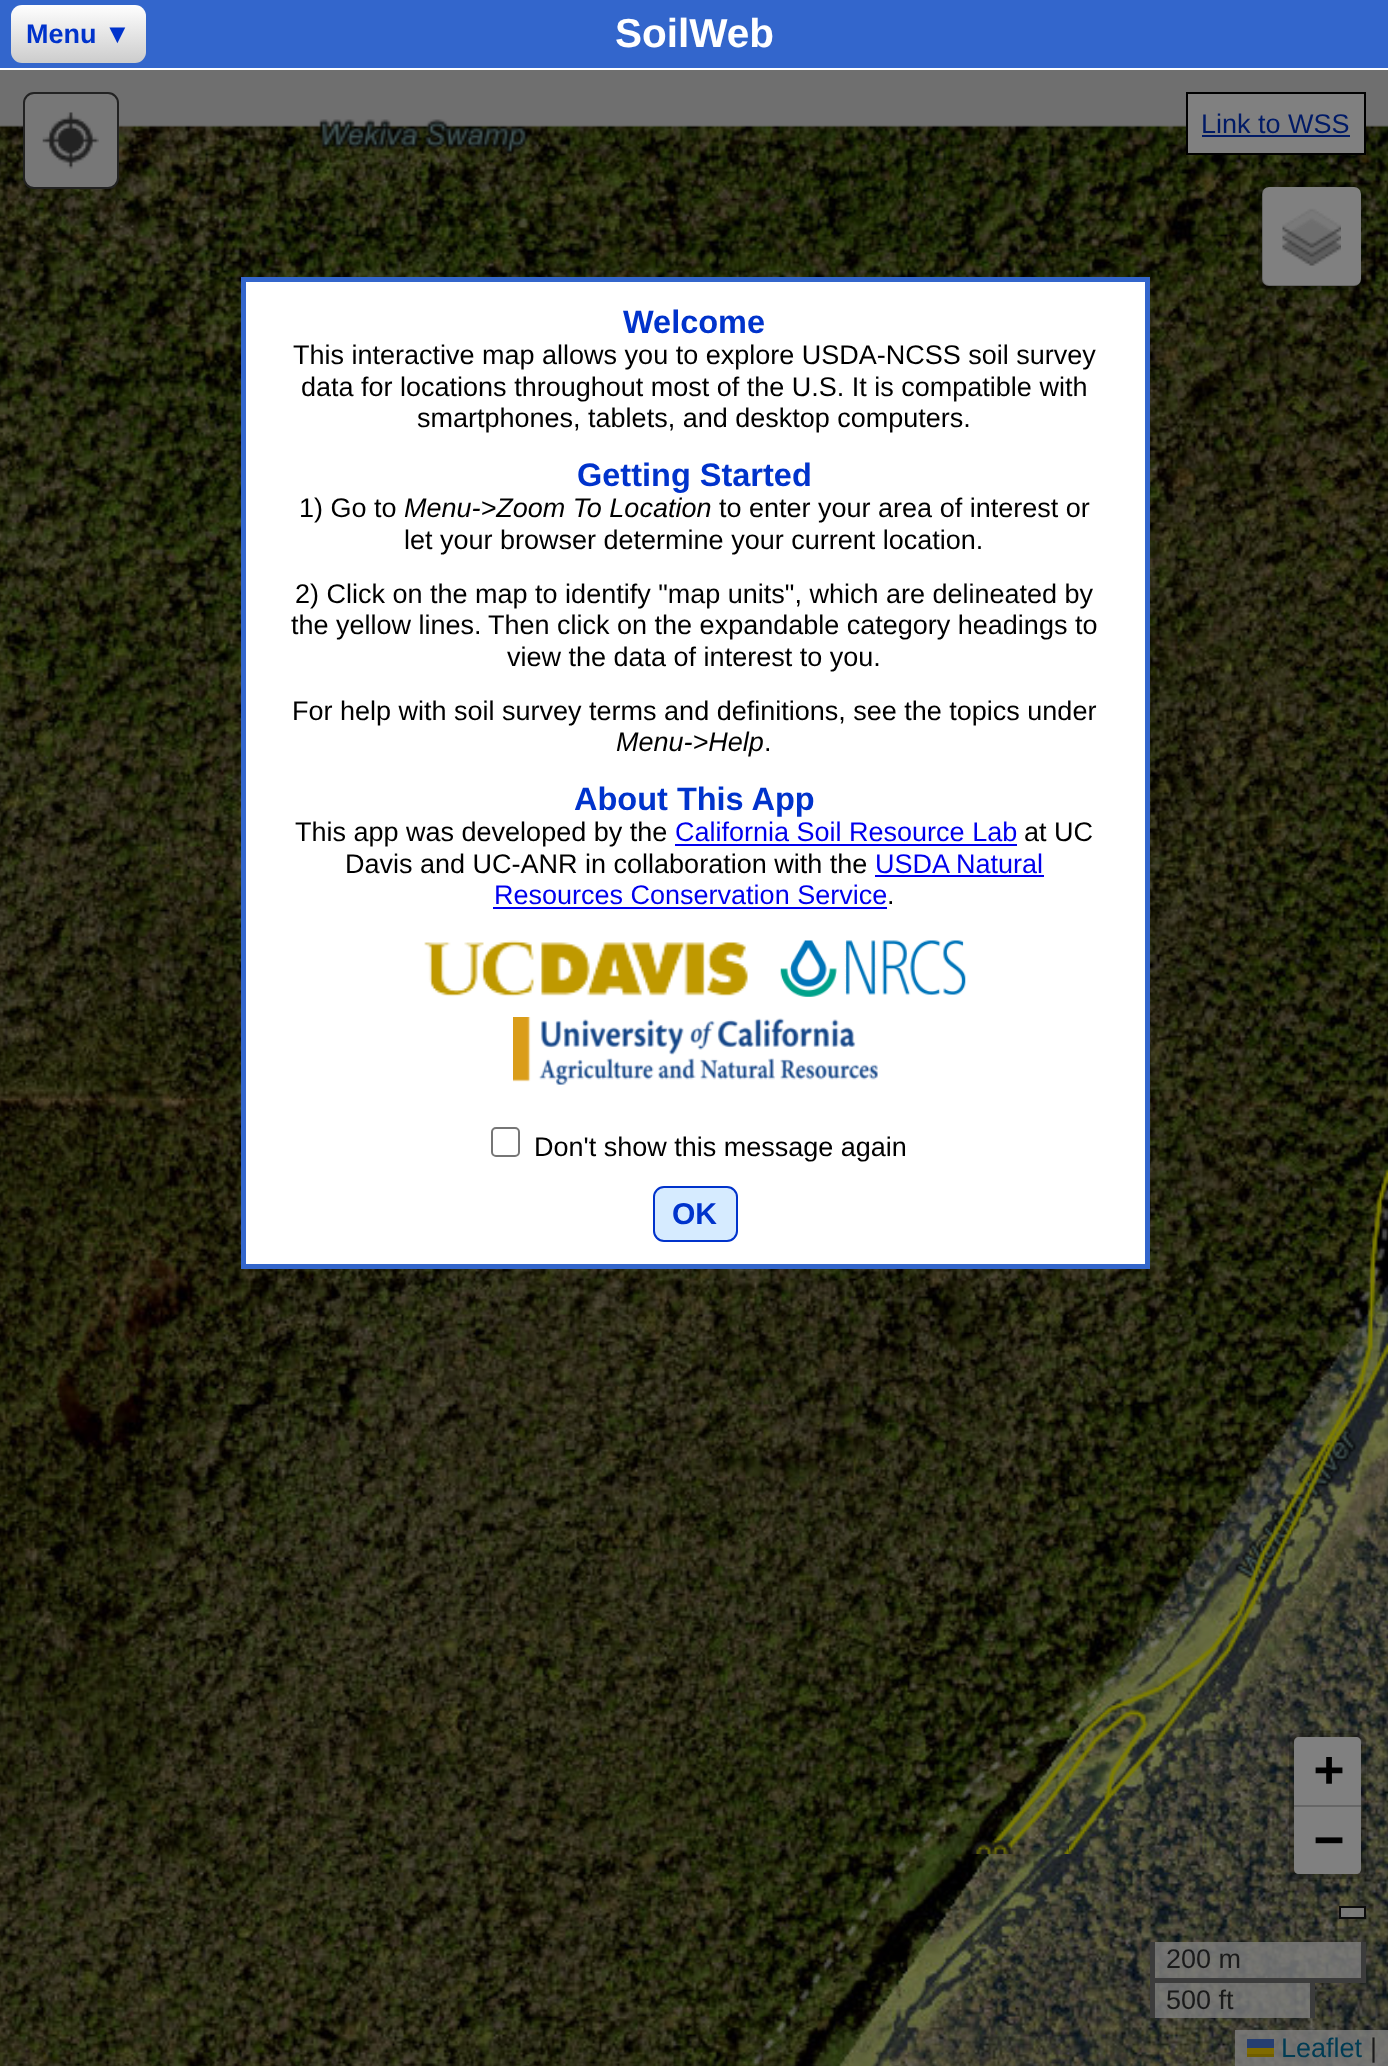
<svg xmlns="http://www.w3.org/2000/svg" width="1388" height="2066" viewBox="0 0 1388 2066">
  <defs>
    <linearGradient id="g1" gradientUnits="userSpaceOnUse" x1="79" y1="4.5" x2="79" y2="63"><stop offset="0" stop-color="#ffffff"/><stop offset="1" stop-color="#cccccc"/></linearGradient>
  </defs>
  <rect width="100%" height="100%" fill="#3366cc"/>
  <rect x="0" y="68" width="1388" height="2" fill="#ffffff"/>
  <rect x="11" y="5" width="135" height="58" rx="11" fill="url(#g1)"/>
  <text x="26" y="43" font-family="Liberation Sans" font-size="27" font-weight="bold" fill="#0033cc">Menu ▼</text>
  <text x="615" y="47" font-family="Liberation Sans" font-size="40.5" font-weight="bold" fill="#ffffff">SoilWeb</text>
  <rect x="0" y="70" width="1388" height="57" fill="#6f6f6f"/>
  <image x="0" y="119" width="1388" height="1947" href="img6.png"/>
  <rect x="243.5" y="279.5" width="904" height="987" fill="#ffffff" stroke="#3366cc" stroke-width="5"/>
  <text x="623" y="333" font-family="Liberation Sans" font-size="32.5" font-weight="bold" fill="#0033cc">Welcome</text>
  <text x="293" y="364" font-family="Liberation Sans" font-size="27" fill="#000000">This interactive map allows you to explore USDA-NCSS soil survey</text>
  <text x="301" y="396" font-family="Liberation Sans" font-size="27" fill="#000000">data for locations throughout most of the U.S. It is compatible with</text>
  <text x="417" y="427" font-family="Liberation Sans" font-size="27" fill="#000000">smartphones, tablets, and desktop computers.</text>
  <text x="577" y="486" font-family="Liberation Sans" font-size="32.5" font-weight="bold" fill="#0033cc">Getting Started</text>
  <text x="299" y="517" font-family="Liberation Sans" font-size="27" fill="#000000">1) Go to</text>
  <text x="404" y="517" font-family="Liberation Sans" font-size="27" font-style="italic" fill="#000000">Menu-&gt;Zoom To Location</text>
  <text x="719" y="517" font-family="Liberation Sans" font-size="27" fill="#000000">to enter your area of interest or</text>
  <text x="404" y="549" font-family="Liberation Sans" font-size="27" fill="#000000">let your browser determine your current location.</text>
  <text x="295" y="603" font-family="Liberation Sans" font-size="27" fill="#000000">2) Click on the map to identify "map units", which are delineated by</text>
  <text x="291" y="634" font-family="Liberation Sans" font-size="27" fill="#000000">the yellow lines.</text>
  <text x="488" y="634" font-family="Liberation Sans" font-size="27" fill="#000000">Then click on the expandable category headings to</text>
  <text x="507" y="666" font-family="Liberation Sans" font-size="27" fill="#000000">view the data of interest to you.</text>
  <text x="292" y="720" font-family="Liberation Sans" font-size="27" fill="#000000">For help with soil survey terms and definitions, see the topics under</text>
  <text x="616" y="751" font-family="Liberation Sans" font-size="27" font-style="italic" fill="#000000">Menu-&gt;Help</text>
  <text x="764" y="751" font-family="Liberation Sans" font-size="27" fill="#000000">.</text>
  <text x="574" y="810" font-family="Liberation Sans" font-size="32.5" font-weight="bold" fill="#0033cc">About This App</text>
  <text x="295" y="841" font-family="Liberation Sans" font-size="27" fill="#000000">This app was developed by the</text>
  <text x="675" y="841" font-family="Liberation Sans" font-size="27" fill="#0000ee">California Soil Resource Lab</text>
  <rect x="675" y="844" width="342" height="2" fill="#0000ee"/>
  <text x="1024" y="841" font-family="Liberation Sans" font-size="27" fill="#000000">at UC</text>
  <text x="345" y="873" font-family="Liberation Sans" font-size="27" fill="#000000">Davis and UC-ANR in collaboration with the</text>
  <text x="875" y="873" font-family="Liberation Sans" font-size="27" fill="#0000ee">USDA Natural</text>
  <rect x="875" y="875" width="169" height="2" fill="#0000ee"/>
  <text x="494" y="904" font-family="Liberation Sans" font-size="27" fill="#0000ee">Resources Conservation Service</text>
  <rect x="493" y="907" width="394" height="2" fill="#0000ee"/>
  <text x="887" y="904" font-family="Liberation Sans" font-size="27" fill="#000000">.</text>
  <image x="424" y="940" width="324" height="57" href="img1.png"/>
  <image x="780" y="940" width="186" height="57" href="img2.png"/>
  <image x="513" y="1017" width="365" height="68" href="img3.png"/>
  <rect x="492" y="1128" width="27" height="28" rx="4" fill="none" stroke="#767676" stroke-width="2"/>
  <text x="534" y="1156" font-family="Liberation Sans" font-size="27" fill="#000000">Don't show this message again</text>
  <rect x="654" y="1187" width="83" height="54" rx="10" fill="#d6ebff" stroke="#0033cc" stroke-width="2"/>
  <text x="672" y="1224" font-family="Liberation Sans" font-size="30" font-weight="bold" fill="#0033cc">OK</text>
  <rect x="24" y="93" width="94" height="95" rx="10" fill="#777777" stroke="#222222" stroke-width="2"/>
  <image x="42" y="112" width="57" height="57" href="img4.png"/>
  <rect x="1187" y="93" width="178" height="61" fill="#808080" stroke="#000000" stroke-width="2"/>
  <text x="1201" y="133" font-family="Liberation Sans" font-size="27" fill="#001a66">Link to WSS</text>
  <rect x="1202" y="135" width="148" height="2" fill="#001a66"/>
  <rect x="1262" y="187" width="99" height="99" rx="7" fill="#808080"/>
  <rect x="1260.5" y="184.5" width="103" height="103" rx="8.5" fill="none" stroke="#000000" stroke-opacity="0.2" stroke-width="5"/>
  <image x="1282" y="208" width="59" height="58" href="img5.png"/>
  <image x="1069" y="1278" width="319" height="576" href="img9.png"/>
  <rect x="1291.5" y="1735.5" width="72" height="141" rx="6.5" fill="none" stroke="#000000" stroke-opacity="0.2" stroke-width="5"/>
  <path d="M1299 1737H1356C1359 1737 1361 1739 1361 1742V1807H1294V1742C1294 1739 1296 1737 1299 1737Z" fill="#808080"/>
  <rect x="1294" y="1805" width="67" height="2" fill="#666666"/>
  <text x="1314" y="1786" font-family="DejaVu Sans Mono" font-size="50" font-weight="bold" fill="#000000">+</text>
  <path d="M1294 1807H1361V1869C1361 1872 1359 1874 1356 1874H1299C1296 1874 1294 1872 1294 1869Z" fill="#808080"/>
  <text x="1314" y="1856" font-family="DejaVu Sans Mono" font-size="50" font-weight="bold" fill="#000000">−</text>
  <rect x="1339" y="1906" width="27" height="13" fill="#808080" fill-opacity="0.9"/>
  <rect x="1340" y="1907" width="25" height="11" fill="none" stroke="#000000" stroke-opacity="0.9" stroke-width="2"/>
  <rect x="1155" y="1942" width="206" height="36" fill="#808080" fill-opacity="0.8"/>
  <rect x="1361" y="1942" width="5" height="40" fill="#3c3c3c"/>
  <rect x="1315" y="1978" width="51" height="5" fill="#3c3c3c"/>
  <rect x="1150" y="1942" width="5" height="40" fill="#3c3c3c"/>
  <text x="1166" y="1968" font-family="Liberation Sans" font-size="27" fill="#1a1a1a">200 m</text>
  <rect x="1155" y="1983" width="155" height="35" fill="#808080" fill-opacity="0.8"/>
  <rect x="1150" y="1978" width="164" height="5" fill="#3c3c3c"/>
  <rect x="1310" y="1978" width="5" height="40" fill="#3c3c3c"/>
  <rect x="1150" y="1978" width="5" height="40" fill="#3c3c3c"/>
  <text x="1166" y="2009" font-family="Liberation Sans" font-size="27" fill="#1a1a1a">500 ft</text>
  <rect x="1235" y="2030" width="153" height="36" fill="#808080" fill-opacity="0.8"/>
  <text x="1281" y="2057" font-family="Liberation Sans" font-size="27" fill="#003c54">Leaflet</text>
  <rect x="1247" y="2039" width="27" height="9" fill="#263e71"/>
  <rect x="1247" y="2048" width="27" height="6" fill="#806b00"/>
  <rect x="1247" y="2054" width="27" height="3" fill="#705e00"/>
  <text x="1370" y="2057" font-family="Liberation Sans" font-size="27" fill="#1a1a1a">|</text>
  <image x="1369" y="1169" width="19" height="109" href="img7.png"/>
  <image x="971" y="1750" width="98" height="104" href="img8.png"/>
</svg>
